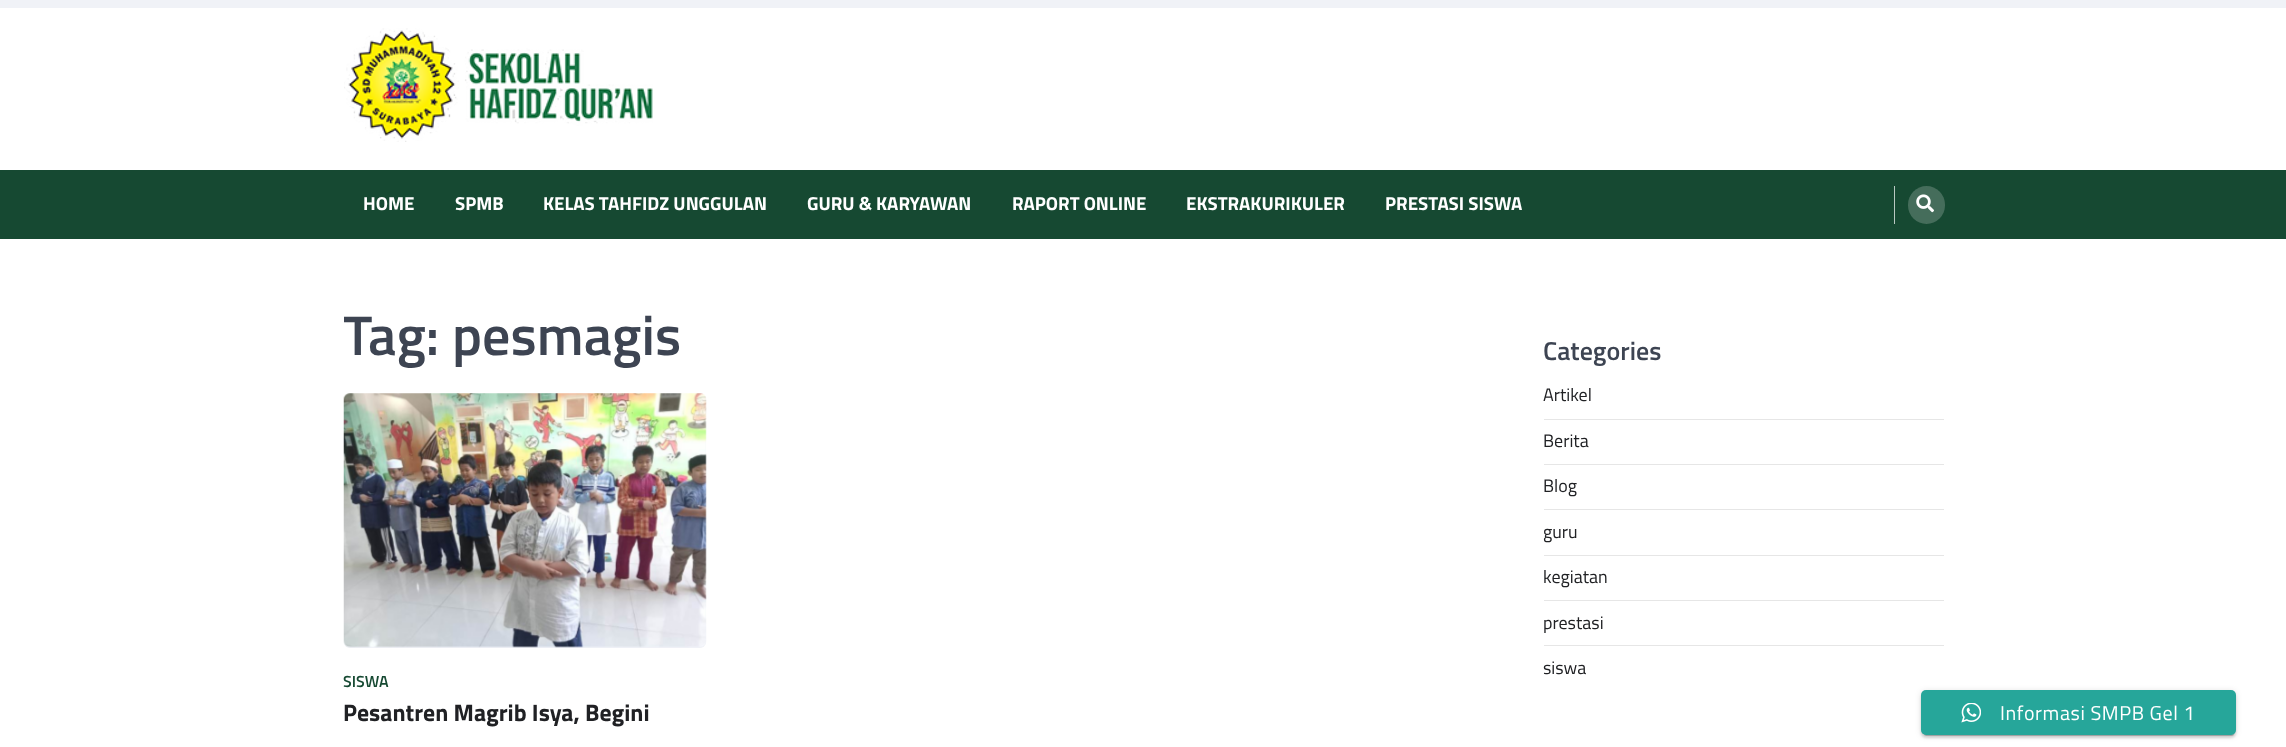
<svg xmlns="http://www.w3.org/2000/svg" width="2286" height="747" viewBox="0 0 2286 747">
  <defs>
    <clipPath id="clip1"><rect x="344" y="301" width="1162" height="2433"/></clipPath>
    <filter id="blur1" x="-50%" y="-200%" width="200%" height="500%"><feGaussianBlur stdDeviation="0.5"/></filter>
    <filter id="blur2" x="-50%" y="-200%" width="200%" height="500%"><feGaussianBlur stdDeviation="3"/></filter>
    <filter id="blur3" x="-50%" y="-200%" width="200%" height="500%"><feGaussianBlur stdDeviation="1"/></filter>
  </defs>
  <rect width="100%" height="100%" fill="#ffffff"/>
  <rect x="0" y="0" width="2286" height="8" fill="#f0f2f7"/>
  <image x="344" y="28" width="309" height="114" href="img1.png"/>
  <rect x="0" y="170" width="2286" height="69" fill="#164932"/>
  <text x="363" y="210" font-family="Titillium Web" font-size="18.75" font-weight="bold" fill="#ffffff">HOME</text>
  <text x="455" y="210" font-family="Titillium Web" font-size="18.75" font-weight="bold" fill="#ffffff">SPMB</text>
  <text x="543" y="210" font-family="Titillium Web" font-size="18.75" font-weight="bold" fill="#ffffff">KELAS TAHFIDZ UNGGULAN</text>
  <text x="807" y="210" font-family="Titillium Web" font-size="18.75" font-weight="bold" fill="#ffffff">GURU &amp; KARYAWAN</text>
  <text x="1012" y="210" font-family="Titillium Web" font-size="18.75" font-weight="bold" fill="#ffffff">RAPORT ONLINE</text>
  <text x="1186" y="210" font-family="Titillium Web" font-size="18.75" font-weight="bold" fill="#ffffff">EKSTRAKURIKULER</text>
  <text x="1385" y="210" font-family="Titillium Web" font-size="18.75" font-weight="bold" fill="#ffffff">PRESTASI SISWA</text>
  <rect x="1894" y="186" width="1" height="38" fill="#b9c8c2"/>
  <rect x="1908" y="186" width="37" height="38" rx="18.5" fill="#456d5b"/>
  <image x="1916" y="194" width="18" height="19" href="img2.png"/>
  <g clip-path="url(#clip1)">
    <text x="343" y="355" font-family="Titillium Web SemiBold" font-size="56" font-weight="600" fill="#3d4452">Tag:</text>
  </g>
  <text x="452" y="355" font-family="Titillium Web SemiBold" font-size="56" font-weight="600" fill="#3d4452">pesmagis</text>
  <rect x="344" y="394" width="362" height="254" rx="6" fill="#f0f2f7"/>
  <image x="343" y="393" width="364" height="255" href="img3.png"/>
  <text x="343" y="687" font-family="Titillium Web SemiBold" font-size="16" font-weight="600" fill="#164932">SISWA</text>
  <text x="343" y="721" font-family="Titillium Web" font-size="23.75" font-weight="bold" fill="#202124">Pesantren Magrib Isya, Begini</text>
  <text x="1543" y="360" font-family="Titillium Web SemiBold" font-size="26" font-weight="600" fill="#3d4452">Categories</text>
  <rect x="1544" y="419" width="400" height="1" fill="#e6e6e6"/>
  <text x="1543" y="401" font-family="Titillium Web" font-size="18" fill="#202124">Artikel</text>
  <rect x="1544" y="464" width="400" height="1" fill="#e6e6e6"/>
  <text x="1543" y="447" font-family="Titillium Web" font-size="18" fill="#202124">Berita</text>
  <rect x="1544" y="509" width="400" height="1" fill="#e6e6e6"/>
  <text x="1543" y="492" font-family="Titillium Web" font-size="18" fill="#202124">Blog</text>
  <rect x="1544" y="555" width="400" height="1" fill="#e6e6e6"/>
  <text x="1543" y="538" font-family="Titillium Web" font-size="18" fill="#202124">guru</text>
  <rect x="1544" y="600" width="400" height="1" fill="#e6e6e6"/>
  <text x="1543" y="583" font-family="Titillium Web" font-size="18" fill="#202124">kegiatan</text>
  <rect x="1544" y="645" width="400" height="1" fill="#e6e6e6"/>
  <text x="1543" y="629" font-family="Titillium Web" font-size="18" fill="#202124">prestasi</text>
  <text x="1543" y="674" font-family="Titillium Web" font-size="18" fill="#202124">siswa</text>
  <rect x="1924" y="696" width="310" height="40" rx="2.5" fill="#000000" fill-opacity="0.2" filter="url(#blur1)"/>
  <rect x="1921" y="691" width="315" height="45" rx="5" fill="#000000" fill-opacity="0.12" filter="url(#blur2)"/>
  <rect x="1921" y="693" width="315" height="45" rx="5" fill="#000000" fill-opacity="0.14" filter="url(#blur3)"/>
  <rect x="1921" y="690" width="315" height="45" rx="5" fill="#26a69a"/>
  <image x="1961" y="703" width="20" height="20" href="img4.png"/>
  <text x="2000" y="720" font-family="Titillium Web" font-size="20" letter-spacing="0.6" fill="#ffffff">Informasi SMPB Gel 1</text>
</svg>
